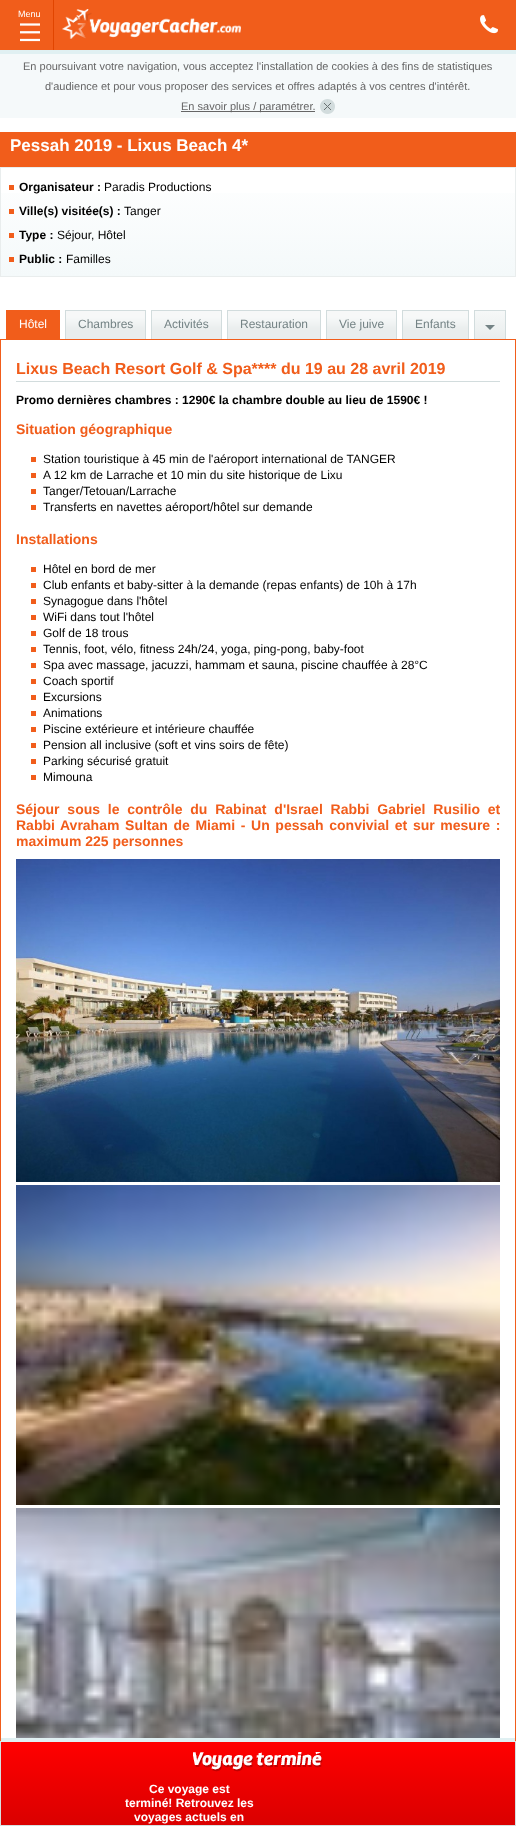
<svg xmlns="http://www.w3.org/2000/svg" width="516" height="1826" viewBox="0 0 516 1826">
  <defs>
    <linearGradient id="g1" gradientUnits="userSpaceOnUse" x1="258" y1="168" x2="258" y2="276"><stop offset="0" stop-color="#ffffff"/><stop offset="1" stop-color="#f4f9fa"/></linearGradient>
    <linearGradient id="g2" gradientUnits="userSpaceOnUse" x1="490" y1="311" x2="490" y2="339"><stop offset="0" stop-color="#f6f8f8"/><stop offset="1" stop-color="#e9eded"/></linearGradient>
    <linearGradient id="g3" gradientUnits="userSpaceOnUse" x1="258" y1="1742" x2="258" y2="1825"><stop offset="0" stop-color="#ff0000"/><stop offset="1" stop-color="#da0000"/></linearGradient>
  </defs>
  <rect width="100%" height="100%" fill="#ffffff"/>
  <rect x="0" y="0" width="516" height="50" fill="#f15d1b"/>
  <rect x="0" y="50" width="516" height="4" fill="#e0f0f2"/>
  <rect x="53" y="0" width="1" height="50" fill="#e14500"/>
  <text x="18" y="17" font-family="Liberation Sans" font-size="9" fill="#ffffff">Menu</text>
  <image x="20" y="23" width="20" height="19" href="img1.png"/>
  <image x="62" y="9" width="179" height="30" href="img2.png"/>
  <image x="480" y="15" width="18" height="19" href="img3.png"/>
  <rect x="0" y="132" width="516" height="35" fill="#f15d1b"/>
  <text x="10" y="151" font-family="Liberation Sans" font-size="17" font-weight="bold" fill="#ffffff">Pessah 2019 - Lixus Beach 4*</text>
  <rect x="1" y="193" width="514" height="83" fill="url(#g1)"/>
  <rect x="0.5" y="167.5" width="515" height="109" fill="none" stroke="#e9eded"/>
  <rect x="9" y="185" width="5" height="5" fill="#f15d1b"/>
  <text x="19" y="191" font-family="Liberation Sans" font-size="12" font-weight="bold" fill="#000000">Organisateur :</text>
  <text x="104" y="191" font-family="Liberation Sans" font-size="12" fill="#000000">Paradis Productions</text>
  <rect x="9" y="209" width="5" height="5" fill="#f15d1b"/>
  <text x="19" y="215" font-family="Liberation Sans" font-size="12" font-weight="bold" fill="#000000">Ville(s) visitée(s) :</text>
  <text x="124" y="215" font-family="Liberation Sans" font-size="12" fill="#000000">Tanger</text>
  <rect x="9" y="233" width="5" height="5" fill="#f15d1b"/>
  <text x="19" y="239" font-family="Liberation Sans" font-size="12" font-weight="bold" fill="#000000">Type :</text>
  <text x="57" y="239" font-family="Liberation Sans" font-size="12" fill="#000000">Séjour, Hôtel</text>
  <rect x="9" y="257" width="5" height="5" fill="#f15d1b"/>
  <text x="19" y="263" font-family="Liberation Sans" font-size="12" font-weight="bold" fill="#000000">Public :</text>
  <text x="66" y="263" font-family="Liberation Sans" font-size="12" fill="#000000">Familles</text>
  <rect x="6" y="310" width="54" height="29" fill="#f15d1b"/>
  <text x="19" y="328" font-family="Liberation Sans" font-size="12" fill="#ffffff">Hôtel</text>
  <image x="66" y="311" width="79" height="28" href="img4.png"/>
  <rect x="65" y="310" width="81" height="1" fill="#d2dcdd"/>
  <rect x="145" y="310" width="1" height="29" fill="#d2dcdd"/>
  <rect x="65" y="310" width="1" height="29" fill="#d2dcdd"/>
  <text x="78" y="328" font-family="Liberation Sans" font-size="12" fill="#748385">Chambres</text>
  <image x="152" y="311" width="69" height="28" href="img5.png"/>
  <rect x="151" y="310" width="71" height="1" fill="#d2dcdd"/>
  <rect x="221" y="310" width="1" height="29" fill="#d2dcdd"/>
  <rect x="151" y="310" width="1" height="29" fill="#d2dcdd"/>
  <text x="164" y="328" font-family="Liberation Sans" font-size="12" fill="#748385">Activités</text>
  <image x="228" y="311" width="92" height="28" href="img6.png"/>
  <rect x="227" y="310" width="94" height="1" fill="#d2dcdd"/>
  <rect x="320" y="310" width="1" height="29" fill="#d2dcdd"/>
  <rect x="227" y="310" width="1" height="29" fill="#d2dcdd"/>
  <text x="240" y="328" font-family="Liberation Sans" font-size="12" fill="#748385">Restauration</text>
  <image x="327" y="311" width="69" height="28" href="img5.png"/>
  <rect x="326" y="310" width="71" height="1" fill="#d2dcdd"/>
  <rect x="396" y="310" width="1" height="29" fill="#d2dcdd"/>
  <rect x="326" y="310" width="1" height="29" fill="#d2dcdd"/>
  <text x="339" y="328" font-family="Liberation Sans" font-size="12" fill="#748385">Vie juive</text>
  <image x="403" y="311" width="65" height="28" href="img7.png"/>
  <rect x="402" y="310" width="67" height="1" fill="#d2dcdd"/>
  <rect x="468" y="310" width="1" height="29" fill="#d2dcdd"/>
  <rect x="402" y="310" width="1" height="29" fill="#d2dcdd"/>
  <text x="415" y="328" font-family="Liberation Sans" font-size="12" fill="#748385">Enfants</text>
  <rect x="475" y="311" width="30" height="28" fill="url(#g2)"/>
  <rect x="474" y="310" width="32" height="1" fill="#d2dcdd"/>
  <rect x="505" y="310" width="1" height="29" fill="#d2dcdd"/>
  <rect x="474" y="310" width="1" height="29" fill="#d2dcdd"/>
  <path d="M485 325L490 330L495 325Z" fill="#748385"/>
  <rect x="0.5" y="339.5" width="515" height="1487" fill="none" stroke="#f15d1b"/>
  <rect x="16" y="381" width="484" height="1" fill="#d2dcdd"/>
  <text x="16" y="374" font-family="Liberation Sans" font-size="16" font-weight="bold" fill="#f15d1b">Lixus Beach Resort Golf &amp; Spa**** du 19 au 28 avril 2019</text>
  <text x="16" y="404" font-family="Liberation Sans" font-size="12" font-weight="bold" fill="#000000">Promo dernières chambres : 1290€ la chambre double au lieu de 1590€ !</text>
  <text x="16" y="434" font-family="Liberation Sans" font-size="14" font-weight="bold" fill="#f15d1b">Situation géographique</text>
  <rect x="31" y="457" width="5" height="5" fill="#f15d1b"/>
  <text x="43" y="463" font-family="Liberation Sans" font-size="12" fill="#000000">Station touristique à 45 min de l'aéroport international de TANGER</text>
  <rect x="31" y="473" width="5" height="5" fill="#f15d1b"/>
  <text x="43" y="479" font-family="Liberation Sans" font-size="12" fill="#000000">A 12 km de Larrache et 10 min du site historique de Lixu</text>
  <rect x="31" y="489" width="5" height="5" fill="#f15d1b"/>
  <text x="43" y="495" font-family="Liberation Sans" font-size="12" fill="#000000">Tanger/Tetouan/Larrache</text>
  <rect x="31" y="505" width="5" height="5" fill="#f15d1b"/>
  <text x="43" y="511" font-family="Liberation Sans" font-size="12" fill="#000000">Transferts en navettes aéroport/hôtel sur demande</text>
  <text x="16" y="544" font-family="Liberation Sans" font-size="14" font-weight="bold" fill="#f15d1b">Installations</text>
  <rect x="31" y="567" width="5" height="5" fill="#f15d1b"/>
  <text x="43" y="573" font-family="Liberation Sans" font-size="12" fill="#000000">Hôtel en bord de mer</text>
  <rect x="31" y="583" width="5" height="5" fill="#f15d1b"/>
  <text x="43" y="589" font-family="Liberation Sans" font-size="12" fill="#000000">Club enfants et baby-sitter à la demande (repas enfants) de 10h à 17h</text>
  <rect x="31" y="599" width="5" height="5" fill="#f15d1b"/>
  <text x="43" y="605" font-family="Liberation Sans" font-size="12" fill="#000000">Synagogue dans l'hôtel</text>
  <rect x="31" y="615" width="5" height="5" fill="#f15d1b"/>
  <text x="43" y="621" font-family="Liberation Sans" font-size="12" fill="#000000">WiFi dans tout l'hôtel</text>
  <rect x="31" y="631" width="5" height="5" fill="#f15d1b"/>
  <text x="43" y="637" font-family="Liberation Sans" font-size="12" fill="#000000">Golf de 18 trous</text>
  <rect x="31" y="647" width="5" height="5" fill="#f15d1b"/>
  <text x="43" y="653" font-family="Liberation Sans" font-size="12" fill="#000000">Tennis, foot, vélo, fitness 24h/24, yoga, ping-pong, baby-foot</text>
  <rect x="31" y="663" width="5" height="5" fill="#f15d1b"/>
  <text x="43" y="669" font-family="Liberation Sans" font-size="12" fill="#000000">Spa avec massage, jacuzzi, hammam et sauna, piscine chauffée à 28°C</text>
  <rect x="31" y="679" width="5" height="5" fill="#f15d1b"/>
  <text x="43" y="685" font-family="Liberation Sans" font-size="12" fill="#000000">Coach sportif</text>
  <rect x="31" y="695" width="5" height="5" fill="#f15d1b"/>
  <text x="43" y="701" font-family="Liberation Sans" font-size="12" fill="#000000">Excursions</text>
  <rect x="31" y="711" width="5" height="5" fill="#f15d1b"/>
  <text x="43" y="717" font-family="Liberation Sans" font-size="12" fill="#000000">Animations</text>
  <rect x="31" y="727" width="5" height="5" fill="#f15d1b"/>
  <text x="43" y="733" font-family="Liberation Sans" font-size="12" fill="#000000">Piscine extérieure et intérieure chauffée</text>
  <rect x="31" y="743" width="5" height="5" fill="#f15d1b"/>
  <text x="43" y="749" font-family="Liberation Sans" font-size="12" fill="#000000">Pension all inclusive (soft et vins soirs de fête)</text>
  <rect x="31" y="759" width="5" height="5" fill="#f15d1b"/>
  <text x="43" y="765" font-family="Liberation Sans" font-size="12" fill="#000000">Parking sécurisé gratuit</text>
  <rect x="31" y="775" width="5" height="5" fill="#f15d1b"/>
  <text x="43" y="781" font-family="Liberation Sans" font-size="12" fill="#000000">Mimouna</text>
  <text x="16" y="814" word-spacing="3.9" font-family="Liberation Sans" font-size="14" font-weight="bold" fill="#f15d1b">Séjour sous le contrôle du Rabinat d'Israel Rabbi Gabriel Rusilio et</text>
  <text x="16" y="830" word-spacing="1.75" font-family="Liberation Sans" font-size="14" font-weight="bold" fill="#f15d1b">Rabbi Avraham Sultan de Miami - Un pessah convivial et sur mesure :</text>
  <text x="16" y="846" font-family="Liberation Sans" font-size="14" font-weight="bold" fill="#f15d1b">maximum 225 personnes</text>
  <image x="16" y="859" width="484" height="323" href="img8.png"/>
  <image x="16" y="1185" width="484" height="320" href="img9.png"/>
  <image x="16" y="1508" width="484" height="230" href="img10.png"/>
  <rect x="1" y="1742" width="514" height="83" fill="url(#g3)"/>
  <rect x="0.5" y="1741.5" width="515" height="84" fill="none" stroke="#d6dfe0"/>
  <rect x="1" y="1738" width="514" height="4" fill="#e0f0f2"/>
  <image x="193" y="1752" width="130" height="20" href="img11.png"/>
  <text x="149" y="1793" font-family="Liberation Sans" font-size="12" font-weight="bold" fill="#ffffff">Ce voyage est</text>
  <text x="125" y="1807" font-family="Liberation Sans" font-size="12" font-weight="bold" fill="#ffffff">terminé! Retrouvez les</text>
  <text x="134" y="1821" font-family="Liberation Sans" font-size="12" font-weight="bold" fill="#ffffff">voyages actuels en</text>
  <rect x="0" y="54" width="516" height="64" fill="#f5f9fa"/>
  <text x="23" y="70" font-family="Liberation Sans" font-size="11" fill="#666666">En poursuivant votre navigation, vous acceptez l'installation de cookies à des fins de statistiques</text>
  <text x="45" y="90" font-family="Liberation Sans" font-size="11" fill="#666666">d'audience et pour vous proposer des services et offres adaptés à vos centres d'intérêt.</text>
  <rect x="181" y="111" width="134" height="1" fill="#666666"/>
  <text x="181" y="110" font-family="Liberation Sans" font-size="11" fill="#666666">En savoir plus / paramétrer.</text>
  <image x="320" y="99" width="15" height="15" href="img12.png"/>
</svg>
